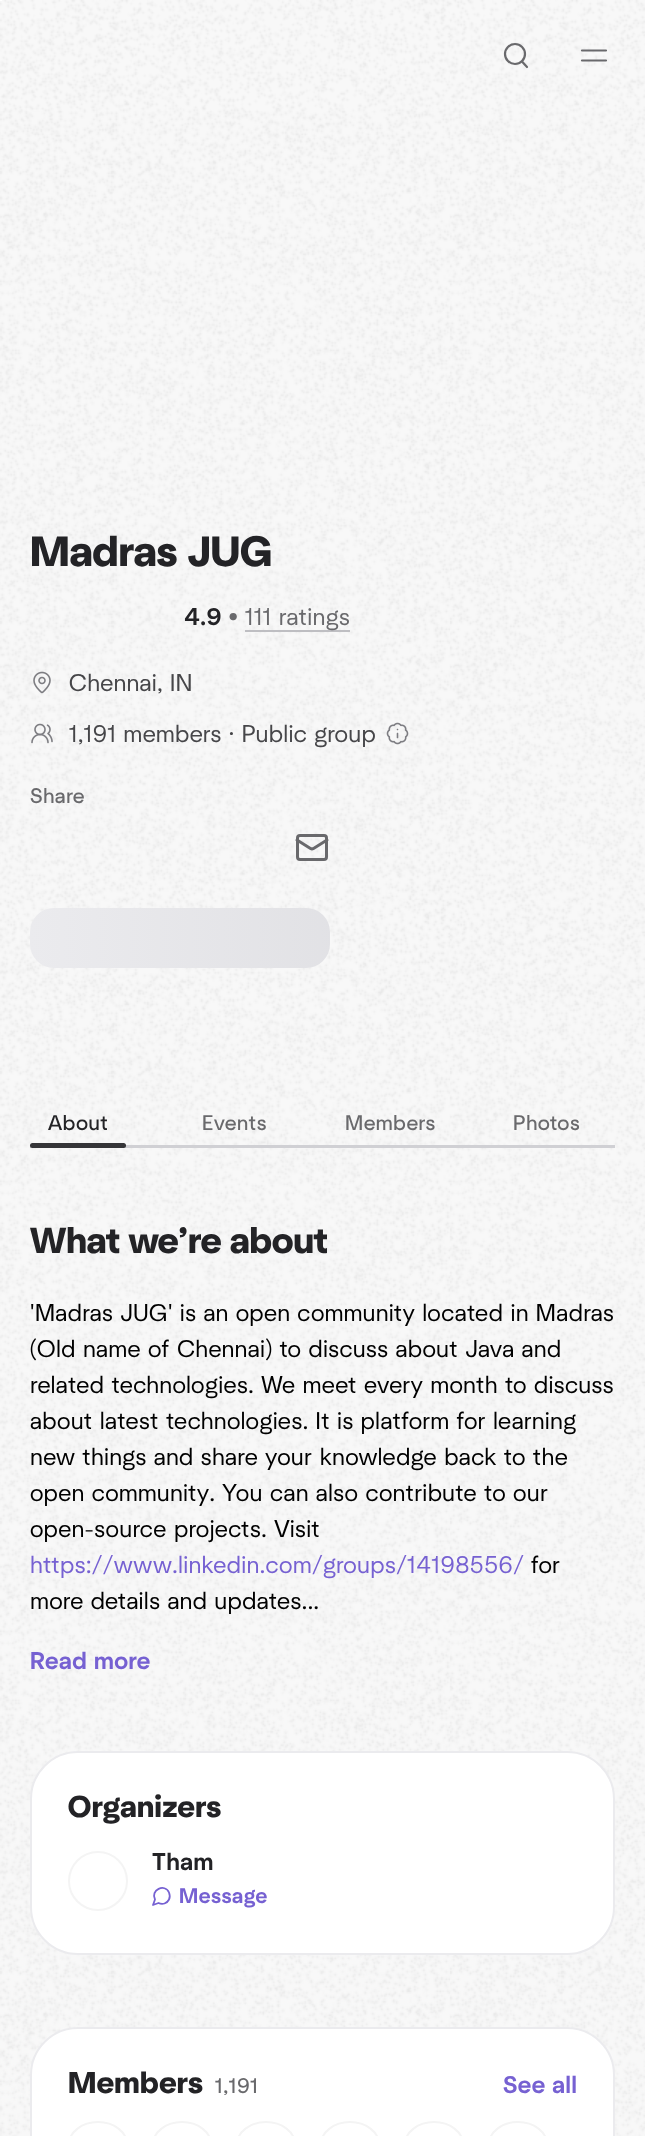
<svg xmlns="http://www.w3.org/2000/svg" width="645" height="2136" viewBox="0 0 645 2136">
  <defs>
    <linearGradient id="g1" gradientUnits="userSpaceOnUse" x1="30" y1="938" x2="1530" y2="938"><stop offset="0" stop-color="#ebebee"/><stop offset="0.3" stop-color="#dddde1"/><stop offset="0.6" stop-color="#ebebee"/></linearGradient>
  </defs>
  <rect width="100%" height="100%" fill="#ffffff"/>
  <image x="0" y="111" width="645" height="2025" href="img1.png"/>
  <image x="0" y="0" width="645" height="111" href="img2.png"/>
  <rect x="0" y="0" width="2" height="1" fill="#ffffff"/>
  <path d="M527 67L522 61.5" fill="none" stroke="#69696c" stroke-width="2.2" stroke-linecap="round" stroke-linejoin="round"/>
  <circle cx="515" cy="54" r="10" fill="none" stroke="#69696c" stroke-width="2.2"/>
  <path d="M582 60.5H606M582 50.5H606" fill="none" stroke="#69696c" stroke-width="2.2" stroke-linecap="round" stroke-linejoin="round"/>
  <text x="30" y="566" font-family="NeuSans" font-size="42" font-weight="bold" fill="#232326">Madras JUG</text>
  <text x="184" y="625" font-family="NeuSans" font-size="24" font-weight="500" letter-spacing="0.48" fill="#232326">4.9</text>
  <text x="228" y="625" font-family="NeuSans" font-size="24" letter-spacing="0.48" fill="#69696c">•</text>
  <rect x="245" y="630" width="105" height="2" fill="#bebec2"/>
  <text x="245" y="625" font-family="NeuSans" font-size="24" letter-spacing="0.48" fill="#69696c">111 ratings</text>
  <image x="33" y="671" width="18" height="23" href="img3.png"/>
  <text x="69" y="691" font-family="NeuSans" font-size="24" letter-spacing="0.48" fill="#464649">Chennai, IN</text>
  <image x="31" y="723" width="22" height="21" href="img4.png"/>
  <text x="69" y="742" font-family="NeuSans" font-size="24" letter-spacing="0.48" fill="#464649">1,191 members · Public group</text>
  <image x="386" y="722" width="23" height="23" href="img5.png"/>
  <text x="30" y="803" font-family="'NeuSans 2'" font-size="21" letter-spacing="0.5" fill="#69696c">Share</text>
  <path d="M327 840L313.5 848.5C312.5 849 311.5 849 310.5 848.5L297 840" fill="none" stroke="#69696c" stroke-width="3" stroke-linecap="round" stroke-linejoin="round"/>
  <rect x="297.5" y="835.5" width="29" height="24" rx="2.5" fill="none" stroke="#69696c" stroke-width="3"/>
  <rect x="30" y="908" width="300" height="60" rx="24" fill="url(#g1)"/>
  <text x="48" y="1130" font-family="'NeuSans 2'" font-size="21" letter-spacing="0.5" fill="#232326">About</text>
  <text x="202" y="1130" font-family="'NeuSans 2'" font-size="21" letter-spacing="0.5" fill="#69696c">Events</text>
  <text x="345" y="1130" font-family="'NeuSans 2'" font-size="21" letter-spacing="0.5" fill="#69696c">Members</text>
  <text x="513" y="1130" font-family="'NeuSans 2'" font-size="21" letter-spacing="0.5" fill="#69696c">Photos</text>
  <rect x="30" y="1145" width="585" height="3" fill="#d0d0d4"/>
  <rect x="30" y="1143" width="96" height="5" rx="2.5" fill="#353538"/>
  <text x="30" y="1253" font-family="NeuSans" font-size="36" font-weight="bold" fill="#232326">What we’re about</text>
  <text x="30" y="1321" font-family="NeuSans" font-size="24" letter-spacing="0.48" fill="#000000">'Madras JUG' is an open community located in Madras</text>
  <text x="30" y="1357" font-family="NeuSans" font-size="24" letter-spacing="0.48" fill="#000000">(Old name of Chennai) to discuss about Java and</text>
  <text x="30" y="1393" font-family="NeuSans" font-size="24" letter-spacing="0.48" fill="#000000">related technologies. We meet every month to discuss</text>
  <text x="30" y="1429" font-family="NeuSans" font-size="24" letter-spacing="0.48" fill="#000000">about latest technologies. It is platform for learning</text>
  <text x="30" y="1465" font-family="NeuSans" font-size="24" letter-spacing="0.48" fill="#000000">new things and share your knowledge back to the</text>
  <text x="30" y="1501" font-family="NeuSans" font-size="24" letter-spacing="0.48" fill="#000000">open community. You can also contribute to our</text>
  <text x="30" y="1537" font-family="NeuSans" font-size="24" letter-spacing="0.48" fill="#000000">open-source projects. Visit</text>
  <text x="30" y="1573" font-family="NeuSans" font-size="24" letter-spacing="0.48" fill="#7661d2">https://www.linkedin.com/groups/14198556/</text>
  <text x="531" y="1573" font-family="NeuSans" font-size="24" letter-spacing="0.48" fill="#000000">for</text>
  <text x="30" y="1609" font-family="NeuSans" font-size="24" letter-spacing="0.48" fill="#000000">more details and updates...</text>
  <text x="30" y="1669" font-family="NeuSans" font-size="24" font-weight="500" letter-spacing="0.48" fill="#7661d2">Read more</text>
  <rect x="31" y="1752" width="583" height="202" rx="47" fill="#ffffff" stroke="#ebebee" stroke-width="2"/>
  <text x="68" y="1817" font-family="NeuSans" font-size="30" font-weight="bold" letter-spacing="0.5" fill="#232326">Organizers</text>
  <circle cx="98" cy="1881" r="29" fill="none" stroke="#f4f4f4" stroke-width="2"/>
  <text x="152" y="1870" font-family="NeuSans" font-size="24" font-weight="500" letter-spacing="0.48" fill="#232326">Tham</text>
  <path d="M158.5 1903C162.5 1905 167 1903.5 169 1899.5C170 1897.5 170 1895 169 1892.5C165 1883 150 1890 155 1899.5L153 1905Z" fill="none" stroke="#7661d2" stroke-width="1.8" stroke-linecap="round" stroke-linejoin="round"/>
  <text x="179" y="1903" font-family="NeuSans" font-size="21" font-weight="500" letter-spacing="0.5" fill="#7661d2">Message</text>
  <rect x="31" y="2028" width="583" height="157" rx="47" fill="#ffffff" stroke="#ebebee" stroke-width="2"/>
  <text x="68" y="2093" font-family="NeuSans" font-size="30" font-weight="bold" letter-spacing="0.5" fill="#232326">Members</text>
  <text x="215" y="2093" font-family="'NeuSans 2'" font-size="21" letter-spacing="0.5" fill="#69696c">1,191</text>
  <text x="503" y="2093" font-family="NeuSans" font-size="24" font-weight="500" letter-spacing="0.48" fill="#7661d2">See all</text>
  <rect x="69" y="2122" width="58" height="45" rx="29" fill="none" stroke="#f4f4f4" stroke-width="2"/>
  <rect x="153" y="2122" width="58" height="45" rx="29" fill="none" stroke="#f4f4f4" stroke-width="2"/>
  <rect x="237" y="2122" width="58" height="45" rx="29" fill="none" stroke="#f4f4f4" stroke-width="2"/>
  <rect x="321" y="2122" width="58" height="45" rx="29" fill="none" stroke="#f4f4f4" stroke-width="2"/>
  <rect x="405" y="2122" width="58" height="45" rx="29" fill="none" stroke="#f4f4f4" stroke-width="2"/>
  <rect x="489" y="2122" width="58" height="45" rx="29" fill="none" stroke="#f4f4f4" stroke-width="2"/>
</svg>
